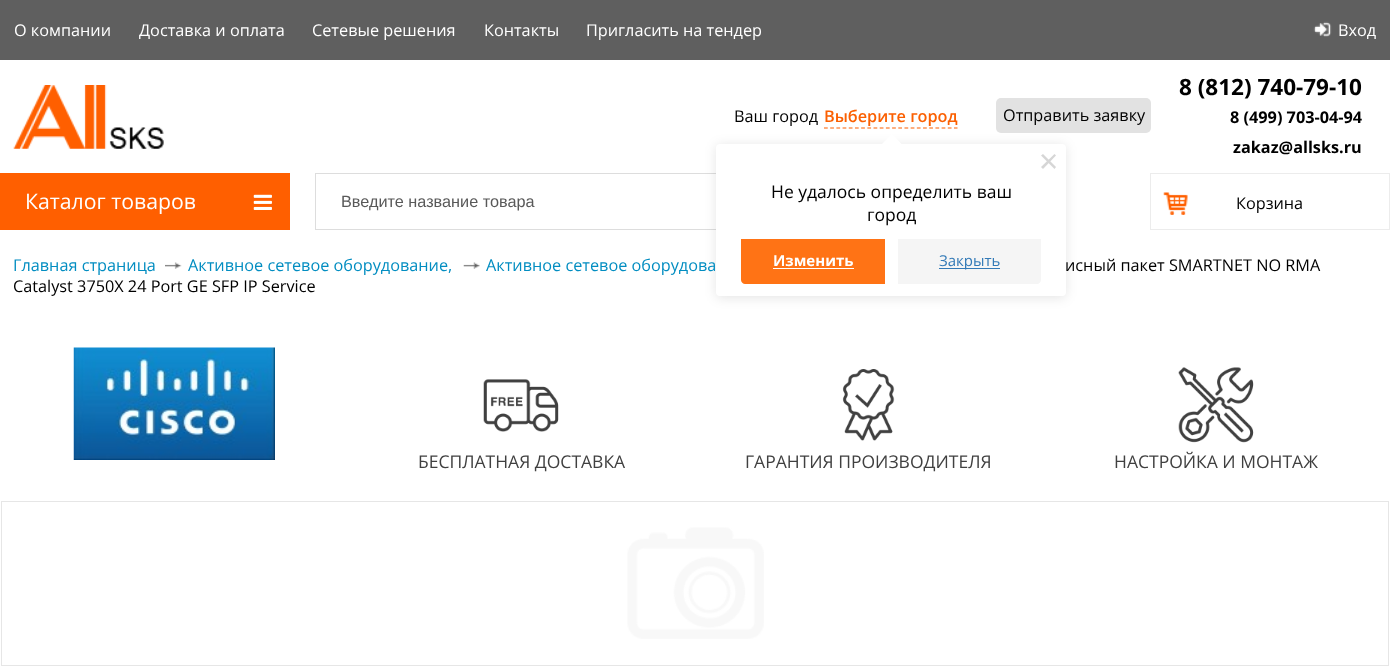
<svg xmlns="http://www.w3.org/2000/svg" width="1390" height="667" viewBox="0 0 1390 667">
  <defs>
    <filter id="blur1" x="-50%" y="-200%" width="200%" height="500%"><feGaussianBlur stdDeviation="6"/></filter>
  </defs>
  <rect width="100%" height="100%" fill="#ffffff"/>
  <rect x="0" y="0" width="1390" height="60" fill="#5f5f5f"/>
  <text x="14" y="36" font-family="Open Sans" font-size="16.25" fill="#ffffff">О компании</text>
  <text x="139" y="36" font-family="Open Sans" font-size="16.25" fill="#ffffff">Доставка и оплата</text>
  <text x="312" y="36" font-family="Open Sans" font-size="16.25" fill="#ffffff">Сетевые решения</text>
  <text x="484" y="36" font-family="Open Sans" font-size="16.25" fill="#ffffff">Контакты</text>
  <text x="586" y="36" font-family="Open Sans" font-size="16.25" fill="#ffffff">Приглаcить на тендер</text>
  <image x="1313" y="21" width="19" height="16" href="img1.png"/>
  <text x="1338" y="36" font-family="Open Sans" font-size="16.25" fill="#ffffff">Вход</text>
  <image x="13" y="85" width="151" height="64" href="img2.png"/>
  <text x="734" y="122" font-family="Open Sans" font-size="16.25" fill="#000000">Ваш город</text>
  <text x="824" y="122" font-family="Open Sans" font-size="16.25" font-weight="600" fill="#fb5f01">Выберите город</text>
  <path d="M824 128H957.5" fill="none" stroke="#fb5f01" stroke-width="1.2" stroke-dasharray="3.75 2.44"/>
  <rect x="996" y="98" width="155" height="35" rx="5" fill="#e2e2e2"/>
  <text x="1003" y="121" font-family="Open Sans" font-size="16.25" fill="#000000">Отправить заявку</text>
  <text x="1179" y="95" font-family="Open Sans" font-size="22.5" font-weight="bold" fill="#000000">8 (812) 740-79-10</text>
  <text x="1230" y="123" font-family="Open Sans" font-size="16.25" font-weight="bold" fill="#000000">8 (499) 703-04-94</text>
  <text x="1233" y="153" font-family="Open Sans" font-size="16.25" font-weight="bold" fill="#000000">zakaz@allsks.ru</text>
  <rect x="0" y="173" width="290" height="57" fill="#ff5f00"/>
  <text x="25" y="209" font-family="Open Sans" font-size="21.25" fill="#ffffff">Каталог товаров</text>
  <image x="253" y="194" width="19" height="16" href="img3.png"/>
  <rect x="315.5" y="173.5" width="555" height="56" fill="none" stroke="#dddddd"/>
  <text x="341" y="207" font-family="Liberation Sans" font-size="16.25" fill="#595959">Введите название товара</text>
  <rect x="1150.5" y="173.5" width="239" height="56" fill="none" stroke="#ececec"/>
  <image x="1163" y="192" width="25" height="23" href="img4.png"/>
  <text x="1236" y="209" font-family="Open Sans" font-size="16.25" fill="#000000">Корзина</text>
  <rect x="716" y="145" width="350" height="153" rx="4" fill="#000000" fill-opacity="0.1" filter="url(#blur1)"/>
  <rect x="716" y="144" width="350" height="152" rx="4" fill="#ffffff"/>
  <path d="M892 134L901.5 144L892 153.5L882 144Z" fill="#ffffff"/>
  <path d="M1054.5 154L1056 155.5L1043 169L1041 167Z" fill="#d6d6d6"/>
  <path d="M1041 155.5L1043 154L1056 167L1054.5 169Z" fill="#d6d6d6"/>
  <text x="771" y="198" font-family="Open Sans" font-size="17.5" fill="#000000">Не удалось определить ваш</text>
  <text x="867" y="221" font-family="Open Sans" font-size="17.5" fill="#000000">город</text>
  <path d="M741 239H885V284H745C743 284 741 282 741 280Z" fill="#ff7315"/>
  <text x="773" y="266" font-family="Open Sans" font-size="15" font-weight="bold" fill="#ffffff">Изменить</text>
  <rect x="773" y="268" width="81" height="1" fill="#ffffff"/>
  <path d="M898 239H1041V280C1041 282 1039 284 1037 284H898Z" fill="#f5f5f5"/>
  <rect x="939" y="268" width="61" height="1" fill="#337ab7"/>
  <text x="939" y="266" font-family="Open Sans" font-size="15" fill="#337ab7">Закрыть</text>
  <text x="13" y="271" font-family="Open Sans" font-size="16.25" fill="#028dc1">Главная страница</text>
  <image x="165" y="262" width="17" height="7" href="img5.png"/>
  <text x="188" y="271" font-family="Open Sans" font-size="16.25" fill="#028dc1">Активное сетевое оборудование,</text>
  <image x="463" y="262" width="17" height="7" href="img6.png"/>
  <text x="486" y="271" font-family="Open Sans" font-size="16.25" fill="#028dc1">Активное сетевое оборудова</text>
  <text x="1065" y="271" font-family="Open Sans" font-size="16.25" fill="#000000">исный пакет SMARTNET NO RMA</text>
  <text x="13" y="292" font-family="Open Sans" font-size="16.25" fill="#000000">Catalyst 3750X 24 Port GE SFP IP Service</text>
  <image x="73" y="347" width="202" height="113" href="img7.png"/>
  <image x="483" y="379" width="76" height="53" href="img8.png"/>
  <text x="418" y="468" font-family="Open Sans" font-size="17.5" fill="#404040">БЕСПЛАТНАЯ ДОСТАВКА</text>
  <image x="842" y="369" width="53" height="72" href="img9.png"/>
  <text x="745" y="468" font-family="Open Sans" font-size="17.5" fill="#404040">ГАРАНТИЯ ПРОИЗВОДИТЕЛЯ</text>
  <image x="1178" y="367" width="76" height="76" href="img10.png"/>
  <text x="1114" y="468" font-family="Open Sans" font-size="17.5" fill="#404040">НАСТРОЙКА И МОНТАЖ</text>
  <rect x="1.5" y="501.5" width="1387" height="164" fill="none" stroke="#e6e6e6"/>
  <image x="627" y="527" width="137" height="112" href="img11.png"/>
</svg>
